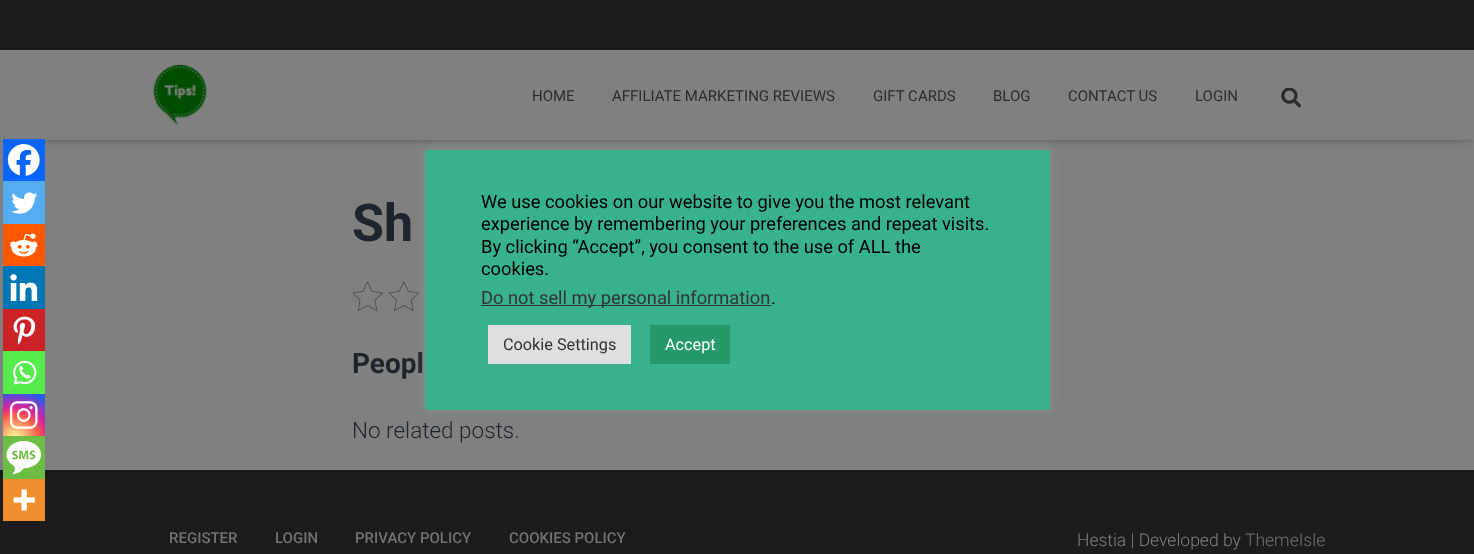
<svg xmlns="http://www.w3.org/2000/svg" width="1474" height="554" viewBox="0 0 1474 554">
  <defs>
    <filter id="blur1" x="-50%" y="-200%" width="200%" height="500%"><feGaussianBlur stdDeviation="3"/></filter>
    <filter id="blur2" x="-50%" y="-200%" width="200%" height="500%"><feGaussianBlur stdDeviation="6"/></filter>
    <radialGradient id="g1" gradientUnits="userSpaceOnUse" cx="15" cy="439" r="54"><stop offset="0" stop-color="#fdf497"/><stop offset="0.05" stop-color="#fdf497"/><stop offset="0.45" stop-color="#fd5949"/><stop offset="0.6" stop-color="#d6249f"/><stop offset="0.9" stop-color="#285aeb"/></radialGradient>
  </defs>
  <rect width="100%" height="100%" fill="#1b1b1c"/>
  <rect x="0" y="140" width="1474" height="330" fill="#808080"/>
  <rect x="3" y="58" width="1470" height="85" fill="#000000" fill-opacity="0.1" filter="url(#blur1)"/>
  <rect x="8" y="59" width="1460" height="75" fill="#000000" fill-opacity="0.42" filter="url(#blur2)"/>
  <rect x="0" y="50" width="1474" height="90" fill="#808080"/>
  <image x="153" y="65" width="54" height="60" href="img1.png"/>
  <text x="532" y="101" font-family="Roboto" font-size="15" fill="#2b2b2b">HOME</text>
  <text x="612" y="101" font-family="Roboto" font-size="15" fill="#2b2b2b">AFFILIATE MARKETING REVIEWS</text>
  <text x="873" y="101" font-family="Roboto" font-size="15" fill="#2b2b2b">GIFT CARDS</text>
  <text x="993" y="101" font-family="Roboto" font-size="15" fill="#2b2b2b">BLOG</text>
  <text x="1068" y="101" font-family="Roboto" font-size="15" fill="#2b2b2b">CONTACT US</text>
  <text x="1195" y="101" font-family="Roboto" font-size="15" fill="#2b2b2b">LOGIN</text>
  <image x="1281" y="88" width="20" height="20" href="img2.png"/>
  <rect x="3" y="139" width="42" height="42" fill="#0765fe"/>
  <image x="7" y="144" width="33" height="32" href="img3.png"/>
  <rect x="3" y="181" width="42" height="43" fill="#55acee"/>
  <image x="11" y="192" width="27" height="22" href="img4.png"/>
  <rect x="3" y="224" width="42" height="42" fill="#ff5700"/>
  <image x="10" y="233" width="28" height="24" href="img5.png"/>
  <rect x="3" y="266" width="42" height="43" fill="#0077b5"/>
  <image x="10" y="274" width="28" height="27" href="img6.png"/>
  <rect x="3" y="309" width="42" height="42" fill="#cc2329"/>
  <image x="13" y="316" width="23" height="29" href="img7.png"/>
  <rect x="3" y="351" width="42" height="43" fill="#55eb4c"/>
  <image x="13" y="360" width="24" height="25" href="img8.png"/>
  <rect x="3" y="394" width="42" height="42" fill="url(#g1)"/>
  <image x="9" y="401" width="29" height="28" href="img9.png"/>
  <rect x="3" y="436" width="42" height="43" fill="#6ebe45"/>
  <image x="6" y="441" width="35" height="33" href="img10.png"/>
  <rect x="3" y="479" width="42" height="42" fill="#ee8e2d"/>
  <image x="13" y="489" width="22" height="22" href="img11.png"/>
  <text x="352" y="241" font-family="Roboto" font-size="52" font-weight="bold" fill="#1e242c">Sh</text>
  <image x="353" y="281" width="30" height="30" href="img12.png"/>
  <image x="389" y="281" width="30" height="30" href="img13.png"/>
  <text x="352" y="373" font-family="Roboto" font-size="28" font-weight="bold" fill="#1e242c">Peopl</text>
  <text x="352" y="438" font-family="Roboto" font-size="22.5" font-weight="300" fill="#1e242c">No related posts.</text>
  <text x="169" y="543" font-family="Roboto" font-size="15" font-weight="500" fill="#717272">REGISTER</text>
  <text x="275" y="543" font-family="Roboto" font-size="15" font-weight="500" fill="#717272">LOGIN</text>
  <text x="355" y="543" font-family="Roboto" font-size="15" font-weight="500" fill="#717272">PRIVACY POLICY</text>
  <text x="509" y="543" font-family="Roboto" font-size="15" font-weight="500" fill="#717272">COOKIES POLICY</text>
  <text x="1077" y="546" font-family="Roboto" font-size="17.5" font-weight="300" fill="#808080">Hestia | Developed by</text>
  <text x="1245" y="546" font-family="Roboto" font-size="17.5" font-weight="300" fill="#717272">ThemeIsle</text>
  <rect x="425" y="149" width="625" height="260" rx="2.5" fill="#acabab" fill-opacity="0.3" filter="url(#blur2)"/>
  <rect x="425" y="150" width="625" height="260" rx="2.5" fill="#37b28d"/>
  <text x="481" y="208" font-family="Roboto" font-size="18.3" fill="#000000">We use cookies on our website to give you the most relevant</text>
  <text x="481" y="230" font-family="Roboto" font-size="18.3" fill="#000000">experience by remembering your preferences and repeat visits.</text>
  <text x="481" y="253" font-family="Roboto" font-size="18.3" fill="#000000">By clicking “Accept”, you consent to the use of ALL the</text>
  <text x="481" y="275" font-family="Roboto" font-size="18.3" fill="#000000">cookies.</text>
  <rect x="481" y="305" width="290" height="1" fill="#333333"/>
  <text x="481" y="304" font-family="Roboto" font-size="18.3" fill="#333333">Do not sell my personal information</text>
  <text x="771" y="304" font-family="Roboto" font-size="18.3" fill="#000000">.</text>
  <rect x="488" y="325" width="143" height="39" fill="#dedfe0"/>
  <text x="503" y="350" font-family="Roboto" font-size="16.25" fill="#333333">Cookie Settings</text>
  <rect x="650" y="325" width="80" height="39" fill="#26996b"/>
  <text x="665" y="350" font-family="Roboto" font-size="16.25" fill="#ffffff">Accept</text>
</svg>
